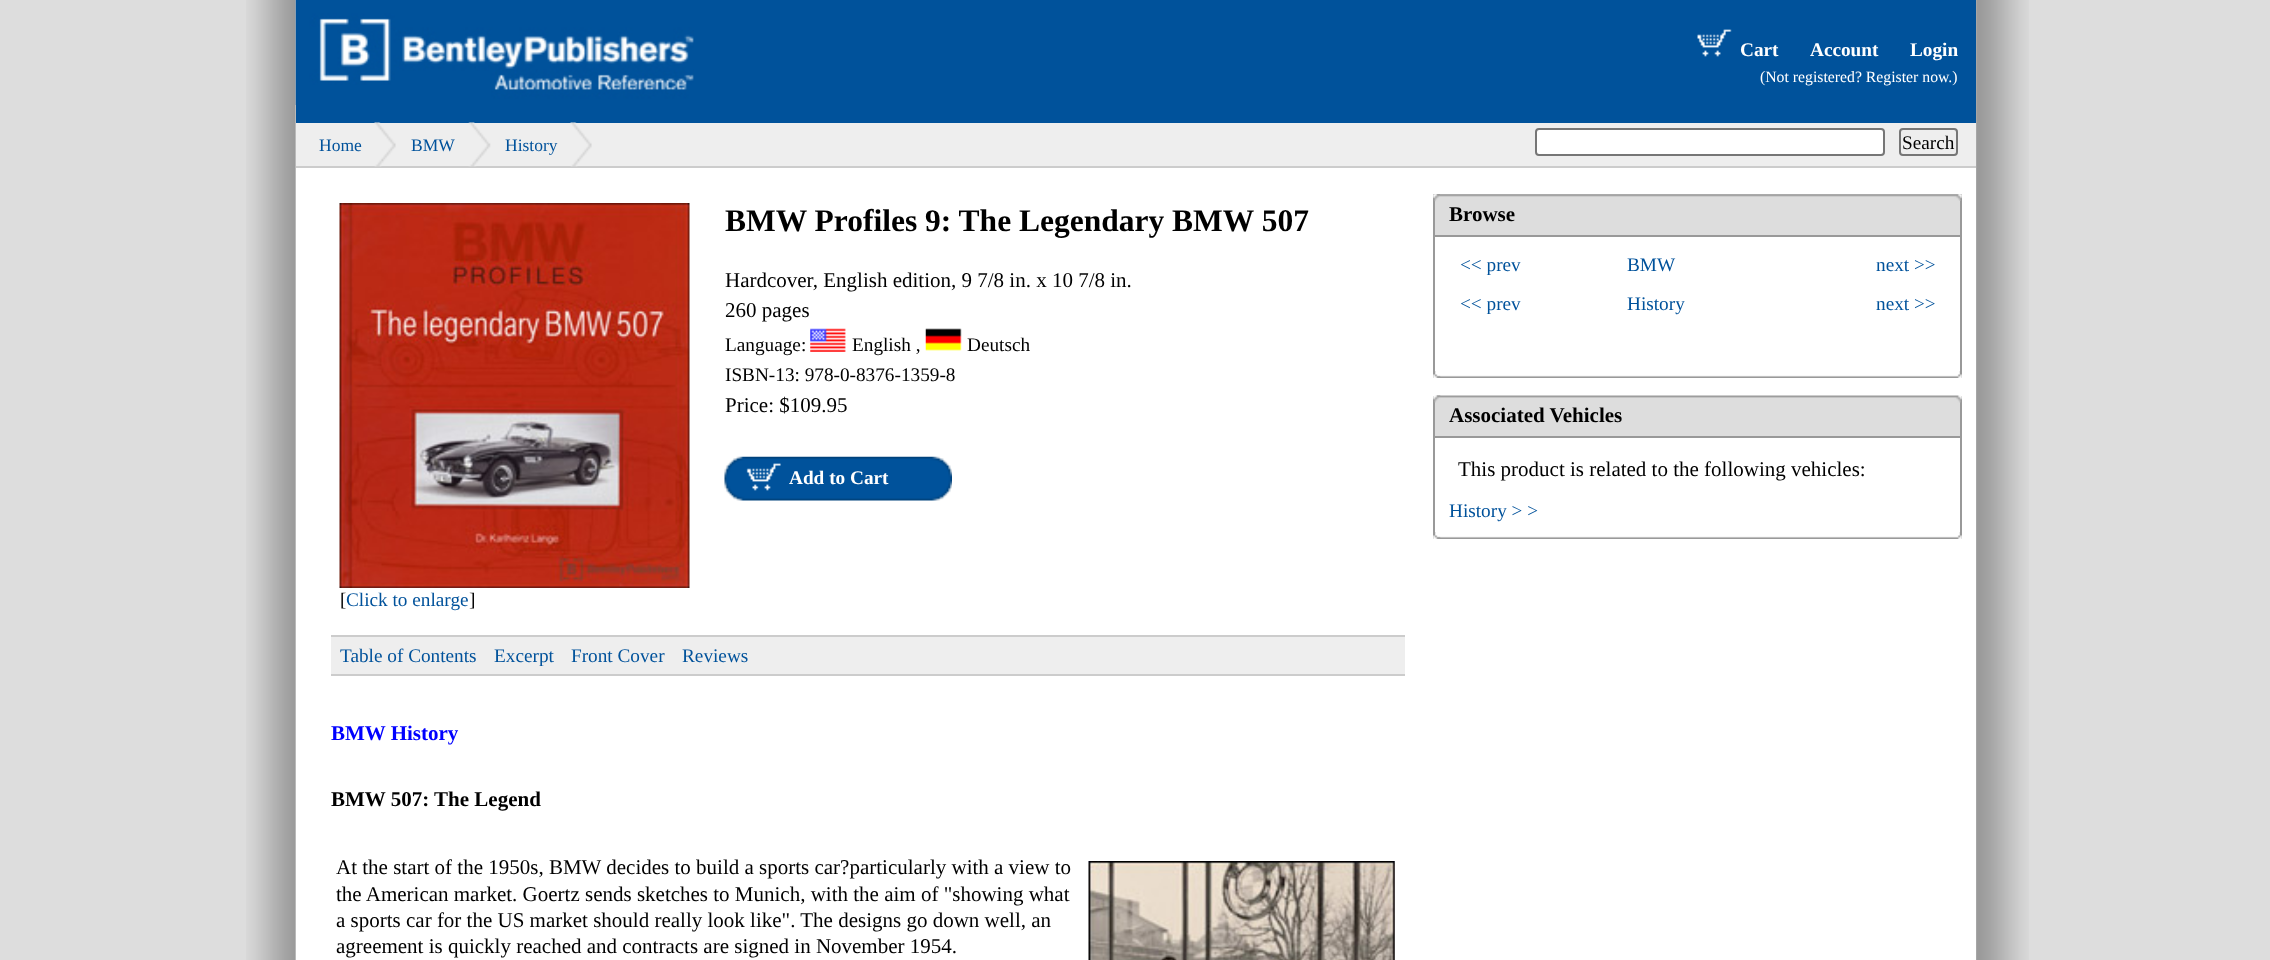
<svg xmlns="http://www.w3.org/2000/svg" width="2270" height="960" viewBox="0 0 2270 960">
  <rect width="100%" height="100%" fill="#dddddd"/>
  <image x="246" y="0" width="1783" height="960" href="img1.png"/>
  <rect x="296" y="168" width="1680" height="792" fill="#ffffff"/>
  <rect x="296" y="0" width="1680" height="123" fill="#00529b"/>
  <image x="295" y="0" width="399" height="105" href="img2.png"/>
  <image x="1697" y="29" width="35" height="28" href="img3.png"/>
  <text x="1740" y="56" font-family="Liberation Serif" font-size="19.25" font-weight="bold" fill="#ffffff">Cart</text>
  <text x="1810" y="56" font-family="Liberation Serif" font-size="19.25" font-weight="bold" fill="#ffffff">Account</text>
  <text x="1910" y="56" font-family="Liberation Serif" font-size="19.25" font-weight="bold" fill="#ffffff">Login</text>
  <text x="1760" y="82" font-family="Liberation Serif" font-size="15.75" fill="#ffffff">(Not registered? Register now.)</text>
  <rect x="296" y="123" width="1680" height="43" fill="#eeeeee"/>
  <rect x="296" y="166" width="1680" height="2" fill="#cccccc"/>
  <text x="319" y="151" font-family="Liberation Serif" font-size="17.5" fill="#00529b">Home</text>
  <image x="374" y="122" width="22" height="45" href="img4.png"/>
  <text x="411" y="151" font-family="Liberation Serif" font-size="17.5" fill="#00529b">BMW</text>
  <image x="468" y="122" width="23" height="45" href="img5.png"/>
  <text x="505" y="151" font-family="Liberation Serif" font-size="17.5" fill="#00529b">History</text>
  <image x="570" y="122" width="22" height="45" href="img4.png"/>
  <rect x="1536" y="129" width="348" height="26" rx="3" fill="#ffffff" stroke="#767676" stroke-width="2"/>
  <rect x="1900" y="129" width="57" height="26" rx="3" fill="none" stroke="#767676" stroke-width="2"/>
  <text x="1902" y="149" font-family="Liberation Serif" font-size="19.25" fill="#000000">Search</text>
  <text x="725" y="231" font-family="Liberation Serif" font-size="31.5" font-weight="bold" fill="#000000">BMW Profiles 9: The Legendary BMW 507</text>
  <text x="725" y="287" font-family="Liberation Serif" font-size="21" fill="#000000">Hardcover, English edition, 9 7/8 in. x 10 7/8 in.</text>
  <text x="725" y="317" font-family="Liberation Serif" font-size="21" fill="#000000">260 pages</text>
  <text x="725" y="351" font-family="Liberation Serif" font-size="19.25" fill="#000000">Language:</text>
  <image x="810" y="328" width="36" height="24" href="img6.png"/>
  <text x="852" y="351" font-family="Liberation Serif" font-size="19.25" fill="#000000">English ,</text>
  <image x="925" y="328" width="37" height="23" href="img7.png"/>
  <text x="967" y="351" font-family="Liberation Serif" font-size="19.25" fill="#000000">Deutsch</text>
  <text x="725" y="381" font-family="Liberation Serif" font-size="19.25" fill="#000000">ISBN-13: 978-0-8376-1359-8</text>
  <text x="725" y="412" font-family="Liberation Serif" font-size="21" fill="#000000">Price: $109.95</text>
  <image x="724" y="456" width="228" height="45" href="img8.png"/>
  <image x="746" y="463" width="35" height="28" href="img9.png"/>
  <text x="789" y="484" font-family="Liberation Serif" font-size="19.25" font-weight="bold" fill="#ffffff">Add to Cart</text>
  <image x="339" y="203" width="351" height="385" href="img10.png"/>
  <text x="340" y="606" font-family="Liberation Serif" font-size="19.25" fill="#000000">[</text>
  <text x="346" y="606" font-family="Liberation Serif" font-size="19.25" fill="#00529b">Click to enlarge</text>
  <text x="469" y="606" font-family="Liberation Serif" font-size="19.25" fill="#000000">]</text>
  <rect x="331" y="637" width="1074" height="37" fill="#eeeeee"/>
  <rect x="331" y="635" width="1074" height="2" fill="#cccccc"/>
  <rect x="331" y="674" width="1074" height="2" fill="#cccccc"/>
  <text x="340" y="662" font-family="Liberation Serif" font-size="19.25" fill="#00529b">Table of Contents</text>
  <text x="494" y="662" font-family="Liberation Serif" font-size="19.25" fill="#00529b">Excerpt</text>
  <text x="571" y="662" font-family="Liberation Serif" font-size="19.25" fill="#00529b">Front Cover</text>
  <text x="682" y="662" font-family="Liberation Serif" font-size="19.25" fill="#00529b">Reviews</text>
  <text x="331" y="740" font-family="Liberation Serif" font-size="21" font-weight="bold" fill="#0000ff">BMW History</text>
  <text x="331" y="806" font-family="Liberation Serif" font-size="21" font-weight="bold" fill="#000000">BMW 507: The Legend</text>
  <text x="336" y="874" font-family="Liberation Serif" font-size="21" fill="#000000">At the start of the 1950s, BMW decides to build a sports car?particularly with a view to</text>
  <text x="336" y="901" font-family="Liberation Serif" font-size="21" fill="#000000">the American market. Goertz sends sketches to Munich, with the aim of "showing what</text>
  <text x="336" y="927" font-family="Liberation Serif" font-size="21" fill="#000000">a sports car for the US market should really look like". The designs go down well, an</text>
  <text x="336" y="953" font-family="Liberation Serif" font-size="21" fill="#000000">agreement is quickly reached and contracts are signed in November 1954.</text>
  <image x="1088" y="861" width="307" height="99" href="img11.png"/>
  <rect x="1960" y="194" width="2" height="184" fill="#999999"/>
  <rect x="1433" y="194" width="2" height="184" fill="#999999"/>
  <rect x="1435" y="194" width="525" height="41" fill="#dddddd"/>
  <image x="1436" y="194" width="526" height="7" href="img12.png"/>
  <image x="1433" y="194" width="7" height="8" href="img13.png"/>
  <rect x="1435" y="235" width="525" height="2" fill="#999999"/>
  <text x="1449" y="221" font-family="Liberation Serif" font-size="21" font-weight="bold" fill="#000000">Browse</text>
  <text x="1460" y="271" font-family="Liberation Serif" font-size="19.25" fill="#00529b">&lt;&lt; prev</text>
  <text x="1627" y="271" font-family="Liberation Serif" font-size="19.25" fill="#00529b">BMW</text>
  <text x="1876" y="271" font-family="Liberation Serif" font-size="19.25" fill="#00529b">next &gt;&gt;</text>
  <text x="1460" y="310" font-family="Liberation Serif" font-size="19.25" fill="#00529b">&lt;&lt; prev</text>
  <text x="1627" y="310" font-family="Liberation Serif" font-size="19.25" fill="#00529b">History</text>
  <text x="1876" y="310" font-family="Liberation Serif" font-size="19.25" fill="#00529b">next &gt;&gt;</text>
  <image x="1436" y="371" width="526" height="7" href="img14.png"/>
  <image x="1433" y="371" width="8" height="7" href="img15.png"/>
  <rect x="1960" y="396" width="2" height="143" fill="#999999"/>
  <rect x="1433" y="396" width="2" height="143" fill="#999999"/>
  <rect x="1435" y="402" width="525" height="34" fill="#dddddd"/>
  <image x="1436" y="395" width="526" height="8" href="img16.png"/>
  <image x="1433" y="395" width="8" height="8" href="img17.png"/>
  <rect x="1435" y="436" width="525" height="2" fill="#999999"/>
  <text x="1449" y="422" font-family="Liberation Serif" font-size="21" font-weight="bold" fill="#000000">Associated Vehicles</text>
  <text x="1458" y="476" font-family="Liberation Serif" font-size="21" fill="#000000">This product is related to the following vehicles:</text>
  <text x="1449" y="517" font-family="Liberation Serif" font-size="19.25" fill="#00529b">History &gt; &gt;</text>
  <image x="1436" y="532" width="526" height="7" href="img14.png"/>
  <image x="1433" y="532" width="8" height="7" href="img15.png"/>
</svg>
